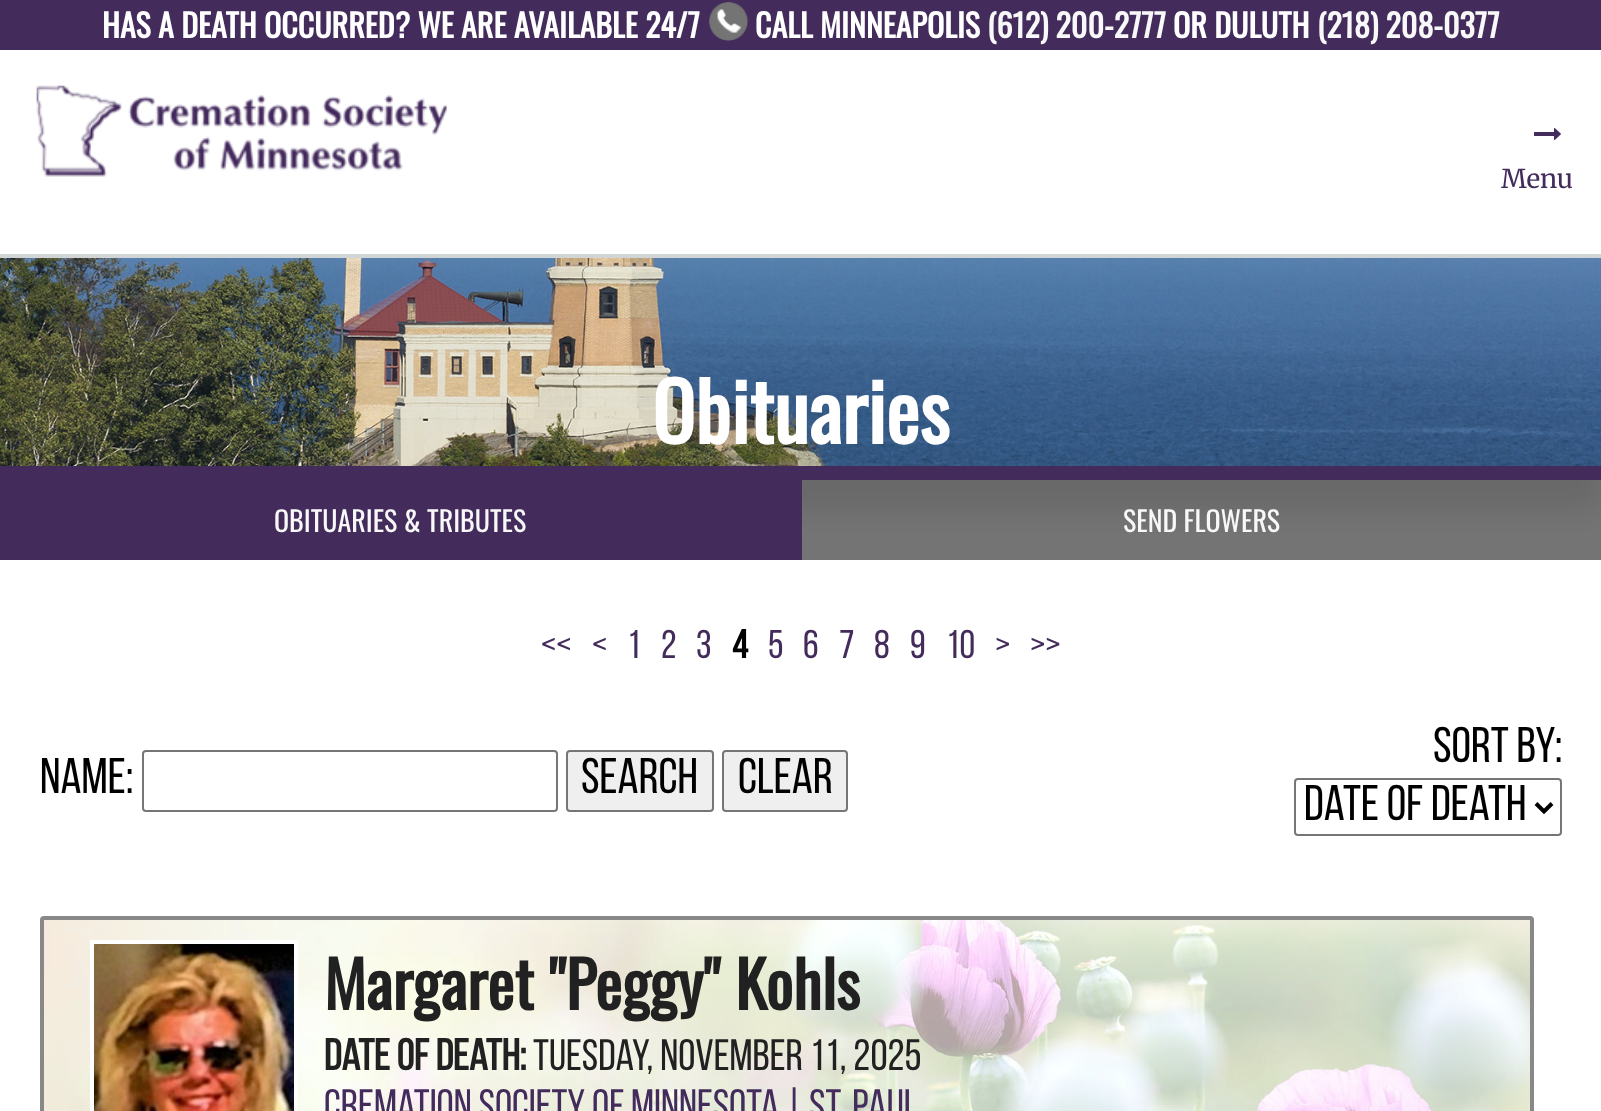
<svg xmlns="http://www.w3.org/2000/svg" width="1601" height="1111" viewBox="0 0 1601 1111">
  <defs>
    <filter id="blur1" x="-50%" y="-200%" width="200%" height="500%"><feGaussianBlur stdDeviation="15"/></filter>
  </defs>
  <rect width="100%" height="100%" fill="#ffffff"/>
  <rect x="0" y="0" width="1601" height="50" fill="#432c5c"/>
  <text x="102" y="38" font-family="Oswald" font-size="32" font-weight="bold" fill="#ffffff">HAS A DEATH OCCURRED? WE ARE AVAILABLE 24/7</text>
  <image x="709" y="2" width="39" height="39" href="img1.png"/>
  <text x="755" y="38" font-family="Oswald" font-size="32" font-weight="bold" fill="#ffffff">CALL MINNEAPOLIS</text>
  <text x="987" y="38" font-family="Oswald" font-size="32" font-weight="bold" fill="#f8f8f8">(612) 200-2777</text>
  <text x="1173" y="38" font-family="Oswald" font-size="32" font-weight="bold" fill="#ffffff">OR DULUTH</text>
  <text x="1317" y="38" font-family="Oswald" font-size="32" font-weight="bold" fill="#f8f8f8">(218) 208-0377</text>
  <rect x="802" y="480" width="799" height="80" fill="#747474"/>
  <rect x="0" y="288" width="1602" height="222" fill="#000000" fill-opacity="0.1" filter="url(#blur1)"/>
  <rect x="0" y="254" width="1601" height="4" fill="#d2d5d5"/>
  <image x="36" y="85" width="411" height="92" href="img2.png"/>
  <image x="1534" y="128" width="27" height="12" href="img3.png"/>
  <text x="1501" y="188" font-family="Merriweather" font-size="26" font-weight="300" fill="#432c5c">Menu</text>
  <rect x="0" y="466" width="1601" height="14" fill="#432c5c"/>
  <image x="0" y="258" width="1601" height="208" href="img4.png"/>
  <text x="652" y="444" font-family="Oswald" font-size="80" font-weight="bold" fill="#ffffff">Obituaries</text>
  <rect x="0" y="480" width="802" height="80" fill="#432c5c"/>
  <text x="274" y="532" font-family="Oswald" font-size="28" fill="#f8f8f8">OBITUARIES &amp; TRIBUTES</text>
  <text x="1123" y="532" font-family="Oswald" font-size="28" fill="#f8f8f8">SEND FLOWERS</text>
  <text x="541" y="658" font-family="Bebas Neue" font-size="40" fill="#432c5c">&lt;&lt;</text>
  <text x="592" y="658" font-family="Bebas Neue" font-size="40" fill="#432c5c">&lt;</text>
  <text x="627" y="658" font-family="Bebas Neue" font-size="40" fill="#432c5c">1</text>
  <text x="661" y="658" font-family="Bebas Neue" font-size="40" fill="#432c5c">2</text>
  <text x="696" y="658" font-family="Bebas Neue" font-size="40" fill="#432c5c">3</text>
  <text x="732" y="658" font-family="Bebas Neue" font-size="40" font-weight="bold" fill="#000000">4</text>
  <text x="768" y="658" font-family="Bebas Neue" font-size="40" fill="#432c5c">5</text>
  <text x="803" y="658" font-family="Bebas Neue" font-size="40" fill="#432c5c">6</text>
  <text x="839" y="658" font-family="Bebas Neue" font-size="40" fill="#432c5c">7</text>
  <text x="874" y="658" font-family="Bebas Neue" font-size="40" fill="#432c5c">8</text>
  <text x="910" y="658" font-family="Bebas Neue" font-size="40" fill="#432c5c">9</text>
  <text x="946" y="658" font-family="Bebas Neue" font-size="40" fill="#432c5c">10</text>
  <text x="995" y="658" font-family="Bebas Neue" font-size="40" fill="#432c5c">&gt;</text>
  <text x="1030" y="658" font-family="Bebas Neue" font-size="40" fill="#432c5c">&gt;&gt;</text>
  <text x="40" y="793" font-family="Bebas Neue" font-size="50" fill="#000000">Name:</text>
  <rect x="143" y="751" width="414" height="60" rx="3" fill="none" stroke="#767676" stroke-width="2"/>
  <rect x="567" y="751" width="146" height="60" rx="3" fill="#efefef" stroke="#767676" stroke-width="2"/>
  <text x="581" y="793" font-family="Bebas Neue" font-size="50" fill="#000000">Search</text>
  <rect x="723" y="751" width="124" height="60" rx="3" fill="#efefef" stroke="#767676" stroke-width="2"/>
  <text x="738" y="793" font-family="Bebas Neue" font-size="50" fill="#000000">Clear</text>
  <text x="1433" y="762" font-family="Bebas Neue" font-size="50" fill="#000000">Sort by:</text>
  <rect x="1295" y="779" width="266" height="56" rx="3" fill="none" stroke="#767676" stroke-width="2"/>
  <path d="M1536 803.5L1544 811.5L1552 803.5" fill="none" stroke="#000000" stroke-width="4"/>
  <text x="1304" y="820" font-family="Bebas Neue" font-size="50" fill="#000000">Date of Death</text>
  <rect x="42" y="918" width="1490" height="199" rx="2" fill="none" stroke="#888888" stroke-width="4"/>
  <image x="44" y="920" width="1486" height="191" href="img5.png"/>
  <image x="94" y="944" width="200" height="167" href="img6.png"/>
  <rect x="92" y="942" width="204" height="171" fill="none" stroke="#ffffff" stroke-width="4"/>
  <text x="324" y="1010" font-family="Oswald" font-size="64" font-weight="bold" fill="#212121">Margaret "Peggy" Kohls</text>
  <text x="324" y="1070" font-family="Bebas Neue" font-size="44" font-weight="bold" fill="#212121">Date Of Death:</text>
  <text x="533" y="1070" font-family="Bebas Neue" font-size="44" fill="#212121">Tuesday, November 11, 2025</text>
  <text x="324" y="1120" font-family="Bebas Neue" font-size="44" fill="#432c5c">Cremation Society Of Minnesota | St. Paul</text>
</svg>
